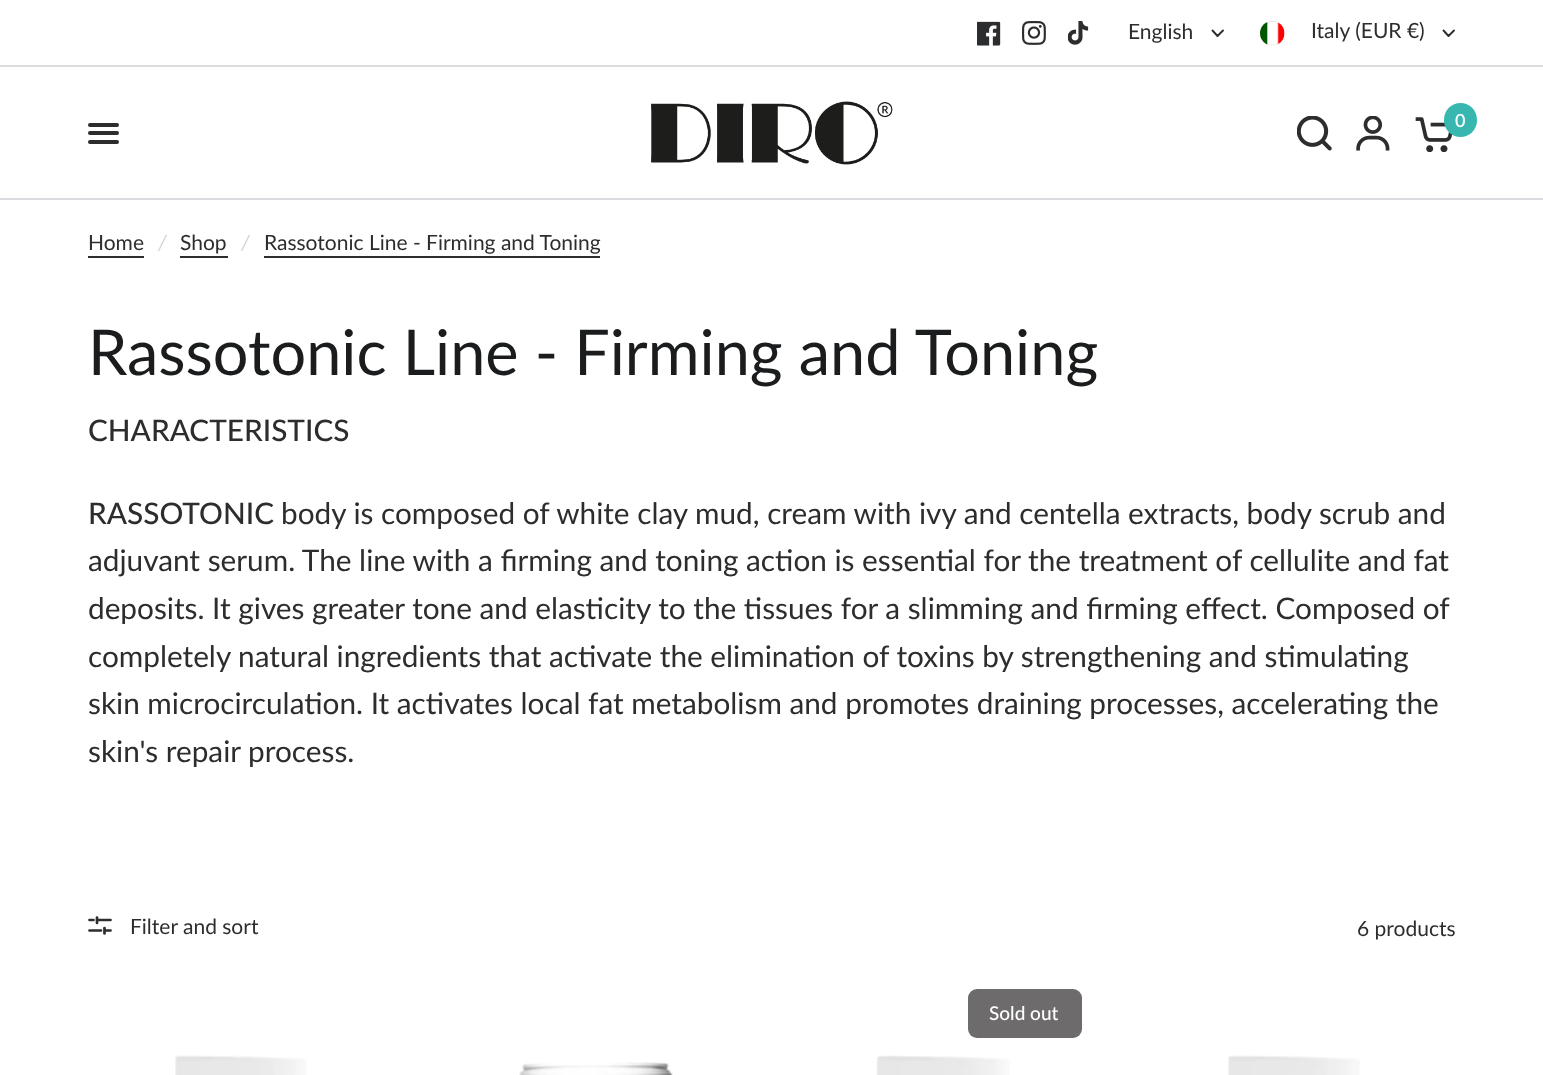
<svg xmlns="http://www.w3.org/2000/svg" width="1543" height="1075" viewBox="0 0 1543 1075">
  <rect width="100%" height="100%" fill="#ffffff"/>
  <rect x="0" y="65" width="1543" height="2" fill="#dadce0"/>
  <image x="977" y="21" width="24" height="25" href="img1.png"/>
  <image x="1022" y="21" width="24" height="24" href="img2.png"/>
  <image x="1068" y="21" width="21" height="24" href="img3.png"/>
  <text x="1128" y="39" font-family="Lato" font-size="21" fill="#2c2d2e">English</text>
  <path d="M1223 30.5L1217.5 36L1212.5 30.5" fill="none" stroke="#2c2d2e" stroke-width="1.9" stroke-linecap="round" stroke-linejoin="round"/>
  <image x="1260" y="21" width="25" height="25" href="img4.png"/>
  <text x="1311" y="38" font-family="Lato" font-size="21" fill="#2c2d2e">Italy (EUR €)</text>
  <path d="M1454 30.5L1448.5 36L1443.5 30.5" fill="none" stroke="#2c2d2e" stroke-width="1.9" stroke-linecap="round" stroke-linejoin="round"/>
  <image x="651" y="101" width="242" height="64" href="img5.png"/>
  <image x="1297" y="116" width="35" height="35" href="img6.png"/>
  <image x="1356" y="116" width="34" height="35" href="img7.png"/>
  <image x="1415" y="117" width="38" height="35" href="img8.png"/>
  <rect x="1444" y="103" width="33" height="34" rx="16.5" fill="#37b7af"/>
  <text x="1455" y="127" font-family="Lato" font-size="18" font-weight="600" fill="#ffffff">0</text>
  <rect x="88" y="123" width="31" height="4" rx="2" fill="#2c2d2e"/>
  <rect x="88" y="131" width="31" height="4" rx="2" fill="#2c2d2e"/>
  <rect x="88" y="140" width="31" height="4" rx="2" fill="#2c2d2e"/>
  <rect x="0" y="198" width="1543" height="2" fill="#dadce0"/>
  <text x="88" y="250" font-family="Lato" font-size="21" fill="#2c2d2e">Home</text>
  <rect x="88" y="256" width="56" height="2" fill="#2c2d2e"/>
  <text x="158" y="250" font-family="Lato" font-size="21" font-style="italic" fill="#d5d5d5">/</text>
  <text x="180" y="250" font-family="Lato" font-size="21" fill="#2c2d2e">Shop</text>
  <rect x="180" y="256" width="48" height="2" fill="#2c2d2e"/>
  <text x="241" y="250" font-family="Lato" font-size="21" font-style="italic" fill="#d5d5d5">/</text>
  <text x="264" y="250" font-family="Lato" font-size="21" fill="#2c2d2e">Rassotonic Line - Firming and Toning</text>
  <rect x="264" y="256" width="336" height="2" fill="#2c2d2e"/>
  <text x="88" y="375" font-family="Lato" font-size="63" fill="#1a1c1d">Rassotonic Line - Firming and Toning</text>
  <text x="88" y="441" font-family="Lato" font-size="29.75" font-weight="500" fill="#2c2d2e">CHARACTERISTICS</text>
  <text x="88" y="524" font-family="Lato" font-size="29.75" font-weight="500" fill="#2c2d2e">RASSOTONIC</text>
  <text x="281" y="524" font-family="Lato" font-size="29.75" fill="#2c2d2e">body is composed of white clay mud, cream with ivy and centella extracts, body scrub and</text>
  <text x="88" y="571" font-family="Lato" font-size="29.75" fill="#2c2d2e">adjuvant serum. The line with a firming and toning action is essential for the treatment of cellulite and fat</text>
  <text x="88" y="619" font-family="Lato" font-size="29.75" fill="#2c2d2e">deposits. It gives greater tone and elasticity to the tissues for a slimming and firming effect. Composed of</text>
  <text x="88" y="667" font-family="Lato" font-size="29.75" fill="#2c2d2e">completely natural ingredients that activate the elimination of toxins by strengthening and stimulating</text>
  <text x="88" y="714" font-family="Lato" font-size="29.75" fill="#2c2d2e">skin microcirculation. It activates local fat metabolism and promotes draining processes, accelerating the</text>
  <text x="88" y="762" font-family="Lato" font-size="29.75" fill="#2c2d2e">skin's repair process.</text>
  <path d="M101 930.5H89.5M110.5 930.5H104.5M93.5 920H89.5M110.5 920H97M97 917.5V923M104.5 933.5V928" fill="none" stroke="#2c2d2e" stroke-width="2.7" stroke-linecap="round" stroke-linejoin="round"/>
  <text x="130" y="934" font-family="Lato" font-size="21" fill="#2c2d2e">Filter and sort</text>
  <text x="1357" y="936" font-family="Lato" font-size="21" fill="#2c2d2e">6 products</text>
  <rect x="968" y="989" width="114" height="49" rx="9" fill="#6d6b6b"/>
  <text x="989" y="1020" font-family="Lato" font-size="19" font-weight="500" fill="#ffffff">Sold out</text>
  <image x="876" y="1055" width="134" height="20" href="img9.png"/>
  <image x="175" y="1055" width="132" height="20" href="img10.png"/>
  <image x="519" y="1062" width="154" height="13" href="img11.png"/>
  <image x="1228" y="1055" width="132" height="20" href="img12.png"/>
</svg>
